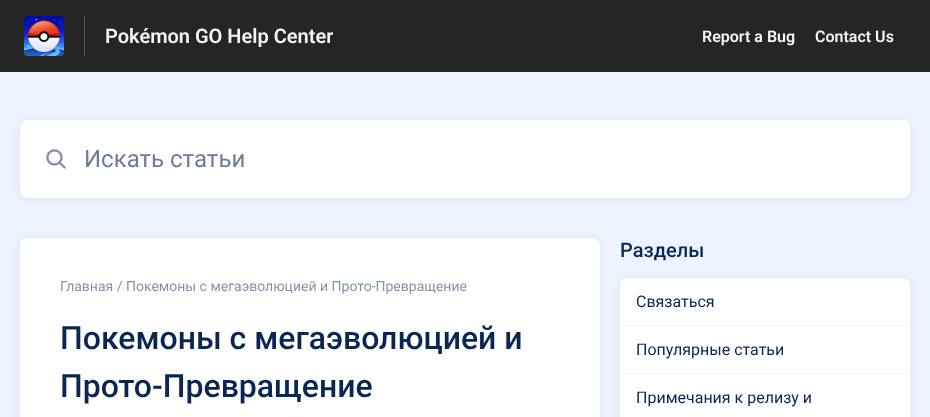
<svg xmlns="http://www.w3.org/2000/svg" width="930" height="417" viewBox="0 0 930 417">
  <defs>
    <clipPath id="clip1"><rect x="105" y="24" width="228" height="24"/></clipPath>
    <filter id="blur1" x="-50%" y="-200%" width="200%" height="500%"><feGaussianBlur stdDeviation="4"/></filter>
  </defs>
  <rect width="100%" height="100%" fill="#eef4ff"/>
  <rect x="0" y="0" width="930" height="72" fill="#252525"/>
  <rect x="84" y="16" width="1" height="40" fill="#595959"/>
  <image x="24" y="16" width="40" height="40" href="img1.png"/>
  <g clip-path="url(#clip1)">
    <text x="105" y="43" font-family="Roboto" font-size="20" font-weight="600" fill="#f3f4f4">Pokémon GO Help Center</text>
  </g>
  <text x="702" y="42" font-family="Roboto" font-size="16" font-weight="600" fill="#f3f4f4">Report a Bug</text>
  <text x="815" y="42" font-family="Roboto" font-size="16" font-weight="600" fill="#f3f4f4">Contact Us</text>
  <rect x="20" y="121" width="890" height="78" rx="8" fill="#000000" fill-opacity="0.08" filter="url(#blur1)"/>
  <rect x="20" y="120" width="890" height="78" rx="8" fill="#ffffff"/>
  <image x="46" y="149" width="20" height="20" href="img2.png"/>
  <text x="84" y="167" font-family="Roboto" font-size="24" fill="#6c7d97">Искать статьи</text>
  <rect x="20" y="239" width="580" height="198" rx="8" fill="#000000" fill-opacity="0.08" filter="url(#blur1)"/>
  <path d="M28 238H592C596.5 238 600 241.5 600 246V417H20V246C20 241.5 23.5 238 28 238Z" fill="#ffffff"/>
  <text x="60" y="291" font-family="Roboto" font-size="14" fill="#8593a9">Главная / Покемоны с мегаэволюцией и Прото-Превращение</text>
  <text x="60" y="349" font-family="Roboto" font-size="32" font-weight="500" fill="#0a2652">Покемоны с мегаэволюцией и</text>
  <text x="60" y="397" font-family="Roboto" font-size="32" font-weight="500" fill="#0a2652">Прото-Превращение</text>
  <text x="620" y="257" font-family="Roboto" font-size="20" font-weight="500" fill="#0a2652">Разделы</text>
  <rect x="620" y="279" width="290" height="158" rx="8" fill="#000000" fill-opacity="0.08" filter="url(#blur1)"/>
  <path d="M628 278H902C906.5 278 910 281.5 910 286V417H620V286C620 281.5 623.5 278 628 278Z" fill="#ffffff"/>
  <rect x="620" y="325" width="290" height="1" fill="#f3f4f6"/>
  <text x="636" y="307" font-family="Roboto" font-size="16" fill="#0a2652">Связаться</text>
  <rect x="620" y="373" width="290" height="1" fill="#f3f4f6"/>
  <text x="636" y="355" font-family="Roboto" font-size="16" fill="#0a2652">Популярные статьи</text>
  <text x="636" y="403" font-family="Roboto" font-size="16" fill="#0a2652">Примечания к релизу и</text>
</svg>
